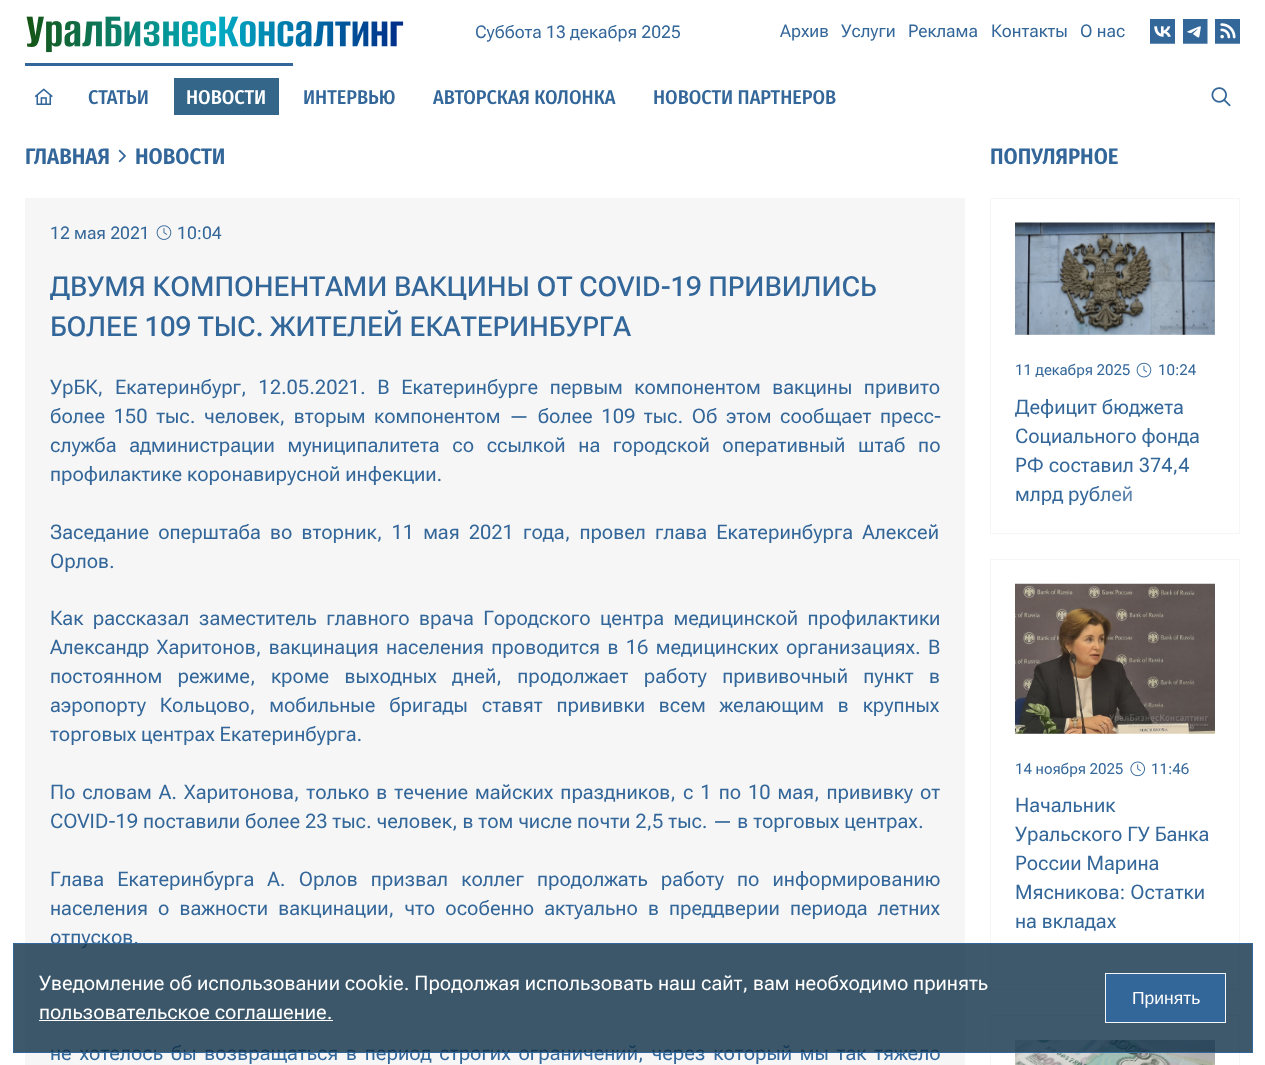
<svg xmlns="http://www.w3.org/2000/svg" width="1265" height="1065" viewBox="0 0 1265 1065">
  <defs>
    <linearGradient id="g1" gradientUnits="userSpaceOnUse" x1="1090" y1="490" x2="1215" y2="490"><stop offset="0" stop-color="#ffffff" stop-opacity="0"/><stop offset="0.75" stop-color="#ffffff" stop-opacity="0.5"/><stop offset="1" stop-color="#ffffff"/></linearGradient>
  </defs>
  <rect width="100%" height="100%" fill="#ffffff"/>
  <image x="26" y="16" width="378" height="37" href="img1.png"/>
  <text x="475" y="38" font-family="Roboto Flex" font-size="17.5" fill="#336699">Суббота 13 декабря 2025</text>
  <text x="780" y="37" font-family="Roboto Flex" font-size="17.5" fill="#336699">Архив</text>
  <text x="841" y="37" font-family="Roboto Flex" font-size="17.5" fill="#336699">Услуги</text>
  <text x="908" y="37" font-family="Roboto Flex" font-size="17.5" fill="#336699">Реклама</text>
  <text x="991" y="37" font-family="Roboto Flex" font-size="17.5" fill="#336699">Контакты</text>
  <text x="1080" y="37" font-family="Roboto Flex" font-size="17.5" fill="#336699">О нас</text>
  <image x="1150" y="19" width="25" height="25" href="img2.png"/>
  <image x="1183" y="19" width="25" height="25" href="img3.png"/>
  <image x="1215" y="19" width="25" height="25" href="img4.png"/>
  <rect x="25" y="63" width="268" height="3" fill="#336699"/>
  <image x="34" y="88" width="19" height="17" href="img5.png"/>
  <text x="88" y="104" font-family="Fira Sans Condensed" font-size="20" font-weight="500" fill="#336699">СТАТЬИ</text>
  <rect x="174" y="78" width="105" height="37" fill="#336688"/>
  <text x="186" y="104" font-family="Fira Sans Condensed" font-size="20" font-weight="500" fill="#ffffff">НОВОСТИ</text>
  <text x="303" y="104" font-family="Fira Sans Condensed" font-size="20" font-weight="500" fill="#336699">ИНТЕРВЬЮ</text>
  <text x="433" y="104" font-family="Fira Sans Condensed" font-size="20" font-weight="500" fill="#336699">АВТОРСКАЯ КОЛОНКА</text>
  <text x="653" y="104" font-family="Fira Sans Condensed" font-size="20" font-weight="500" fill="#336699">НОВОСТИ ПАРТНЕРОВ</text>
  <image x="1211" y="87" width="20" height="20" href="img6.png"/>
  <text x="25" y="164" font-family="Fira Sans Condensed" font-size="22.5" font-weight="600" fill="#336699">ГЛАВНАЯ</text>
  <image x="118" y="149" width="8" height="14" href="img7.png"/>
  <text x="135" y="164" font-family="Fira Sans Condensed" font-size="22.5" font-weight="600" fill="#336699">НОВОСТИ</text>
  <rect x="25" y="198" width="940" height="867" fill="#f6f6f6"/>
  <text x="50" y="239" font-family="Roboto Flex" font-size="17.5" fill="#336699">12 мая 2021</text>
  <image x="156" y="225" width="16" height="15" href="img8.png"/>
  <text x="177" y="239" font-family="Roboto Flex" font-size="17.5" fill="#336699">10:04</text>
  <text x="50" y="296" font-family="Roboto Flex" font-size="27.5" font-weight="500" fill="#336699">ДВУМЯ КОМПОНЕНТАМИ ВАКЦИНЫ ОТ COVID-19 ПРИВИЛИСЬ</text>
  <text x="50" y="336" font-family="Roboto Flex" font-size="27.5" font-weight="500" fill="#336699">БОЛЕЕ 109 ТЫС. ЖИТЕЛЕЙ ЕКАТЕРИНБУРГА</text>
  <text x="50" y="394" word-spacing="6.75" font-family="Roboto Flex" font-size="20" fill="#336699">УрБК, Екатеринбург, 12.05.2021. В Екатеринбурге первым компонентом вакцины привито</text>
  <text x="50" y="423" word-spacing="3.75" font-family="Roboto Flex" font-size="20" fill="#336699">более 150 тыс. человек, вторым компонентом — более 109 тыс. Об этом сообщает пресс-</text>
  <text x="50" y="452" word-spacing="7.75" font-family="Roboto Flex" font-size="20" fill="#336699">служба администрации муниципалитета со ссылкой на городской оперативный штаб по</text>
  <text x="50" y="481" font-family="Roboto Flex" font-size="20" fill="#336699">профилактике коронавирусной инфекции.</text>
  <text x="50" y="539" word-spacing="4.25" font-family="Roboto Flex" font-size="20" fill="#336699">Заседание оперштаба во вторник, 11 мая 2021 года, провел глава Екатеринбурга Алексей</text>
  <text x="50" y="568" font-family="Roboto Flex" font-size="20" fill="#336699">Орлов.</text>
  <text x="50" y="625" word-spacing="4.5" font-family="Roboto Flex" font-size="20" fill="#336699">Как рассказал заместитель главного врача Городского центра медицинской профилактики</text>
  <text x="50" y="654" word-spacing="2.5" font-family="Roboto Flex" font-size="20" fill="#336699">Александр Харитонов, вакцинация населения проводится в 16 медицинских организациях. В</text>
  <text x="50" y="683" word-spacing="10.5" font-family="Roboto Flex" font-size="20" fill="#336699">постоянном режиме, кроме выходных дней, продолжает работу прививочный пункт в</text>
  <text x="50" y="712" word-spacing="9" font-family="Roboto Flex" font-size="20" fill="#336699">аэропорту Кольцово, мобильные бригады ставят прививки всем желающим в крупных</text>
  <text x="50" y="741" font-family="Roboto Flex" font-size="20" fill="#336699">торговых центрах Екатеринбурга.</text>
  <text x="50" y="799" word-spacing="2.1" font-family="Roboto Flex" font-size="20" fill="#336699">По словам А. Харитонова, только в течение майских праздников, с 1 по 10 мая, прививку от</text>
  <text x="50" y="828" font-family="Roboto Flex" font-size="20" fill="#336699">COVID-19 поставили более 23 тыс. человек, в том числе почти 2,5 тыс. — в торговых центрах.</text>
  <text x="50" y="886" word-spacing="8.25" font-family="Roboto Flex" font-size="20" fill="#336699">Глава Екатеринбурга А. Орлов призвал коллег продолжать работу по информированию</text>
  <text x="50" y="915" word-spacing="5.25" font-family="Roboto Flex" font-size="20" fill="#336699">населения о важности вакцинации, что особенно актуально в преддверии периода летних</text>
  <text x="50" y="944" font-family="Roboto Flex" font-size="20" fill="#336699">отпусков.</text>
  <text x="50" y="1060" word-spacing="2.9" font-family="Roboto Flex" font-size="20" fill="#336699">не хотелось бы возвращаться в период строгих ограничений, через который мы так тяжело</text>
  <text x="990" y="164" font-family="Fira Sans Condensed" font-size="22.5" font-weight="600" fill="#336699">ПОПУЛЯРНОЕ</text>
  <image x="1015" y="222" width="200" height="113" href="img9.png"/>
  <image x="1136" y="362" width="16" height="16" href="img10.png"/>
  <text x="1015" y="501" font-family="Roboto Flex" font-size="20" fill="#336699">млрд рублей</text>
  <rect x="1094" y="486" width="38" height="16" fill="url(#g1)"/>
  <rect x="990.5" y="198.5" width="249" height="335" fill="none" stroke="#f6f6f6"/>
  <text x="1015" y="375" font-family="Roboto Flex" font-size="15" fill="#336699">11 декабря 2025</text>
  <text x="1158" y="375" font-family="Roboto Flex" font-size="15" fill="#336699">10:24</text>
  <text x="1015" y="414" font-family="Roboto Flex" font-size="20" fill="#336699">Дефицит бюджета</text>
  <text x="1015" y="443" font-family="Roboto Flex" font-size="20" fill="#336699">Социального фонда</text>
  <text x="1015" y="472" font-family="Roboto Flex" font-size="20" fill="#336699">РФ составил 374,4</text>
  <image x="1015" y="583" width="200" height="151" href="img11.png"/>
  <image x="1130" y="761" width="15" height="16" href="img12.png"/>
  <rect x="990.5" y="559.5" width="249" height="430" fill="none" stroke="#f6f6f6"/>
  <text x="1015" y="774" font-family="Roboto Flex" font-size="15" fill="#336699">14 ноября 2025</text>
  <text x="1151" y="774" font-family="Roboto Flex" font-size="15" fill="#336699">11:46</text>
  <text x="1015" y="812" font-family="Roboto Flex" font-size="20" fill="#336699">Начальник</text>
  <text x="1015" y="841" font-family="Roboto Flex" font-size="20" fill="#336699">Уральского ГУ Банка</text>
  <text x="1015" y="870" font-family="Roboto Flex" font-size="20" fill="#336699">России Марина</text>
  <text x="1015" y="899" font-family="Roboto Flex" font-size="20" fill="#336699">Мясникова: Остатки</text>
  <text x="1015" y="928" font-family="Roboto Flex" font-size="20" fill="#336699">на вкладах</text>
  <image x="1015" y="1040" width="200" height="25" href="img13.png"/>
  <rect x="990.5" y="1015.5" width="249" height="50" fill="none" stroke="#f6f6f6"/>
  <rect x="13.5" y="943.5" width="1239" height="109" fill="#0e3047" fill-opacity="0.8" stroke="#336699"/>
  <text x="39" y="990" font-family="Roboto Flex" font-size="20" fill="#ffffff">Уведомление об использовании cookie. Продолжая использовать наш сайт, вам необходимо принять</text>
  <text x="39" y="1019" font-family="Roboto Flex" font-size="20" fill="#ffffff">пользовательское соглашение.</text>
  <rect x="39" y="1020" width="294" height="1" fill="#ffffff"/>
  <rect x="1105.5" y="973.5" width="120" height="49" fill="#336699" stroke="#f6f6f6"/>
  <text x="1132" y="1004" font-family="Liberation Sans" font-size="17.5" fill="#ffffff">Принять</text>
</svg>
